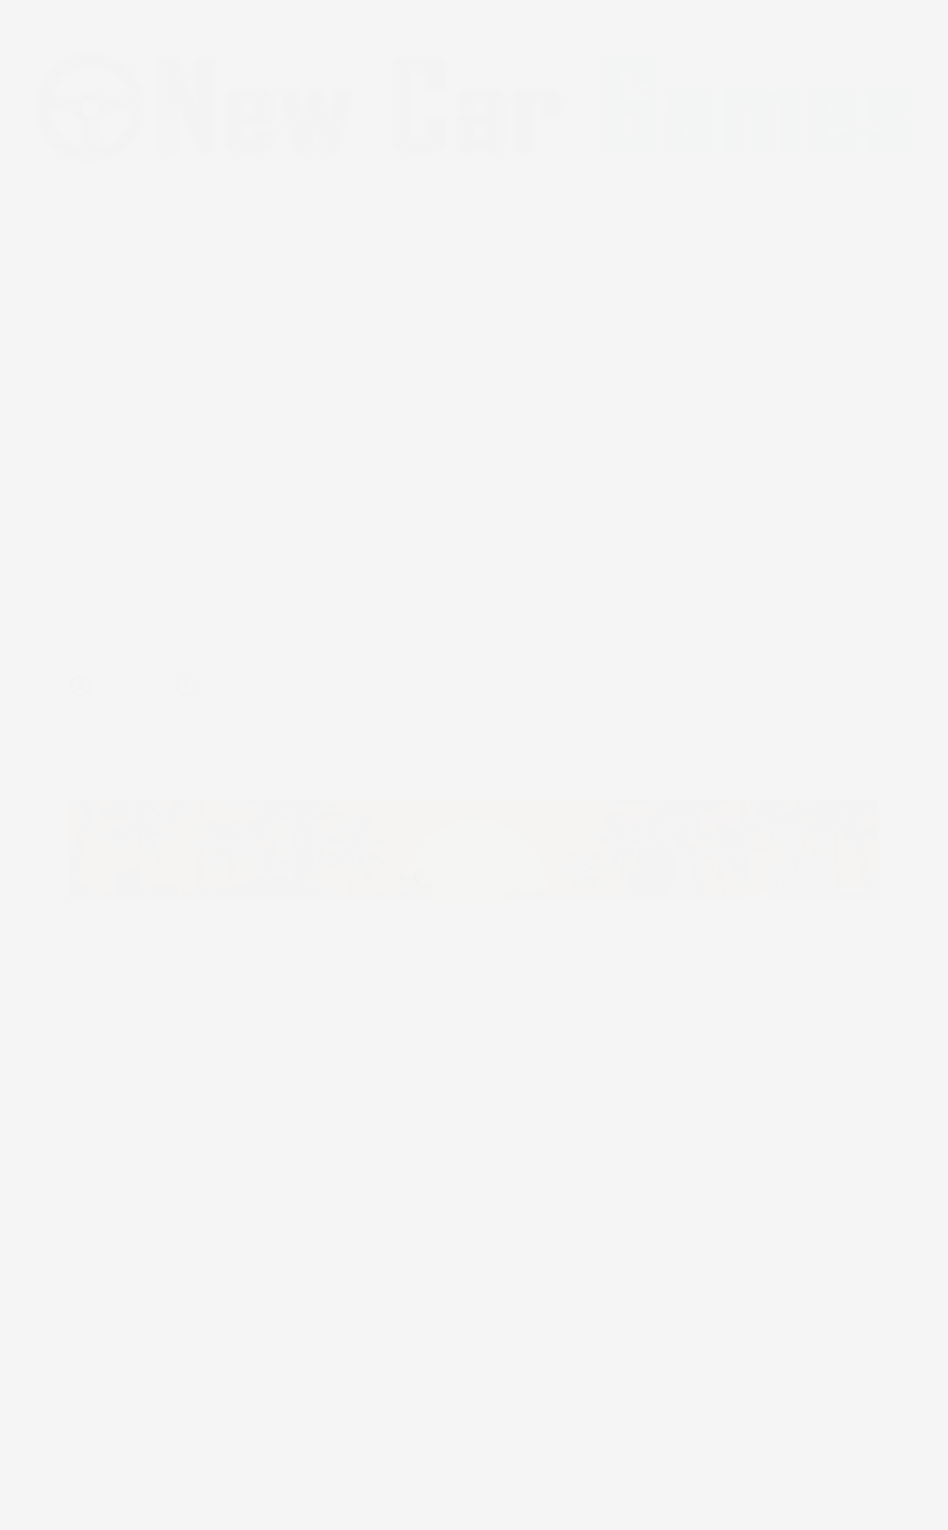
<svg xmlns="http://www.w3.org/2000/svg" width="948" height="1530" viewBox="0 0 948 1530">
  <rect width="100%" height="100%" fill="#f5f5f5"/>
  <image x="35" y="35" width="879" height="128" href="img1.png"/>
  <image x="890" y="259" width="24" height="23" href="img2.png"/>
  <image x="70" y="675" width="21" height="22" href="img3.png"/>
  <image x="175" y="675" width="21" height="22" href="img4.png"/>
  <image x="70" y="799" width="809" height="101" href="img5.png"/>
</svg>
